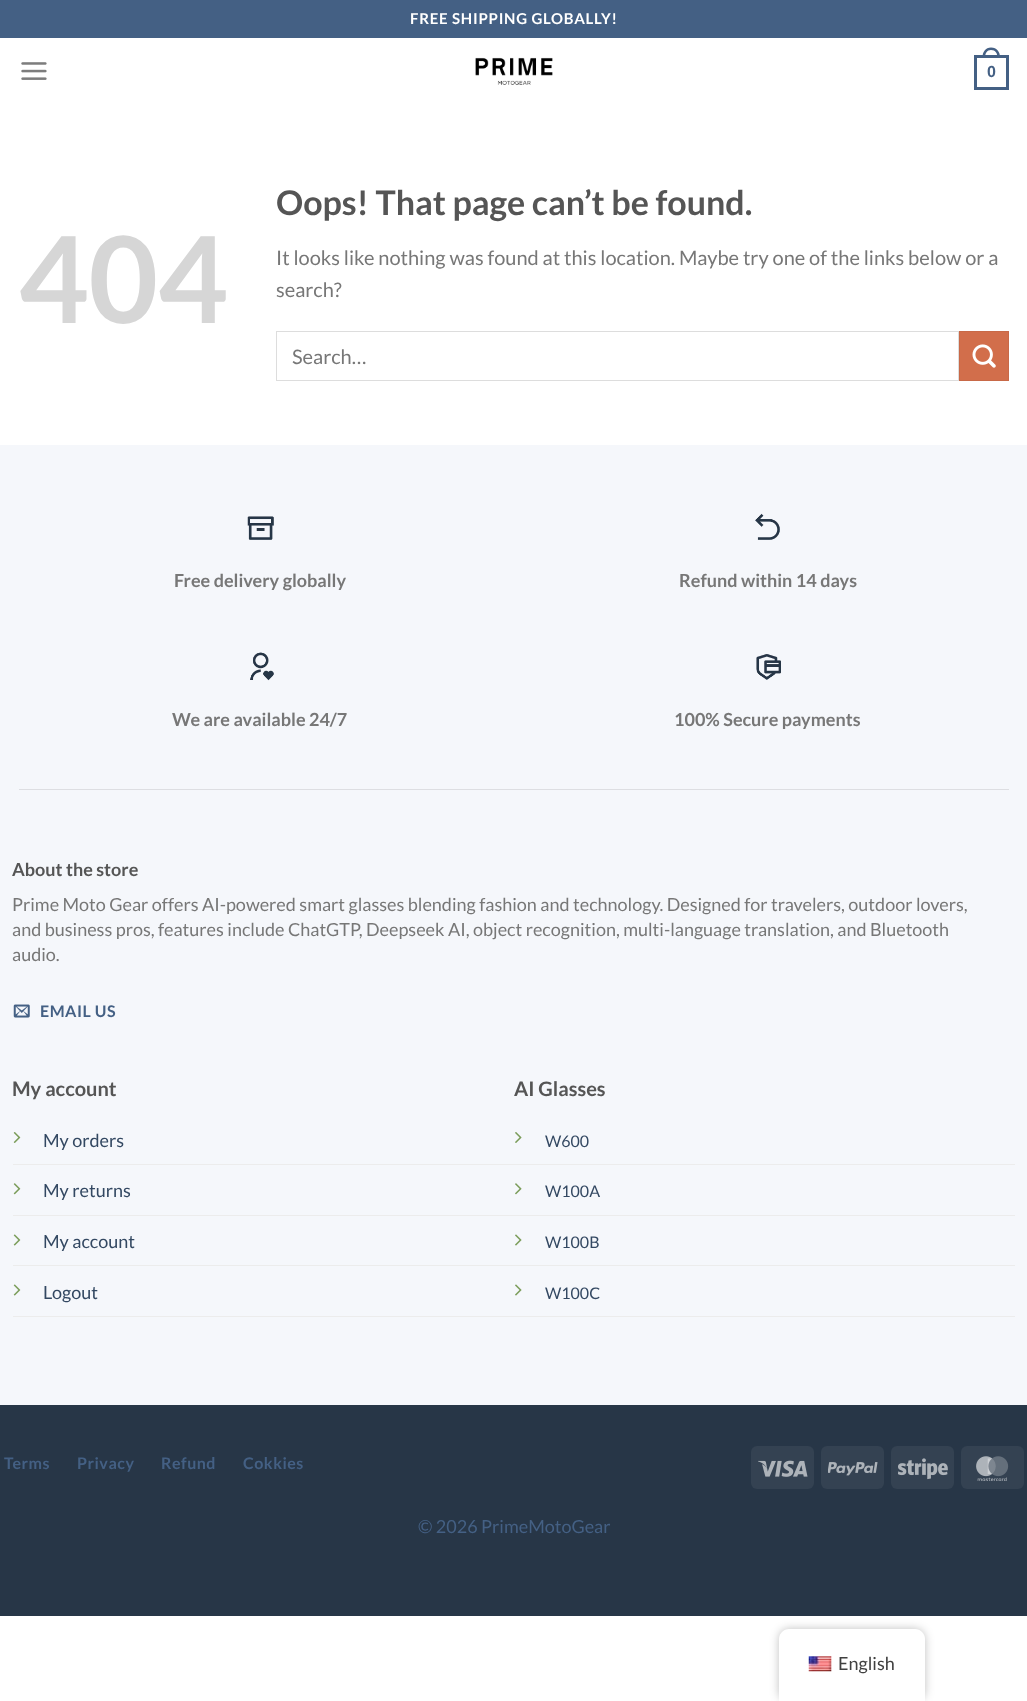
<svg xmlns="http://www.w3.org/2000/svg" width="1027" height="1701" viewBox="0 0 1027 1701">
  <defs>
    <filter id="blur1" x="-50%" y="-200%" width="200%" height="500%"><feGaussianBlur stdDeviation="5"/></filter>
  </defs>
  <rect width="100%" height="100%" fill="#ffffff"/>
  <rect x="0" y="0" width="1027" height="38" fill="#446084"/>
  <text x="410" y="24" font-family="Lato" font-size="15" font-weight="bold" letter-spacing="0.75" fill="#ffffff">FREE SHIPPING GLOBALLY!</text>
  <image x="21" y="62" width="26" height="18" href="img1.png"/>
  <image x="475" y="57" width="78" height="28" href="img2.png"/>
  <rect x="975.5" y="56.5" width="32" height="32" fill="none" stroke="#446084" stroke-width="3"/>
  <path d="M991 47.5C997 47.5 1000 52 1000 57.5H982.5C982.5 52 985.5 47.5 991 47.5ZM991 50C995.5 50 997.5 53.5 997.5 57.5H985C985 53.5 987 50 991 50Z" fill="#446084" fill-rule="evenodd"/>
  <text x="987" y="77" font-family="Liberation Sans" font-size="16" font-weight="bold" fill="#446084">0</text>
  <text x="19" y="323" font-family="Lato" font-size="120" font-weight="bold" fill="#d6d6d6">404</text>
  <text x="276" y="215" font-family="Lato" font-size="34" font-weight="bold" fill="#555555">Oops! That page can’t be found.</text>
  <text x="276" y="265" font-family="Lato" font-size="20" fill="#777777">It looks like nothing was found at this location. Maybe try one of the links below or a</text>
  <text x="276" y="297" font-family="Lato" font-size="20" fill="#777777">search?</text>
  <rect x="276.5" y="331.5" width="682" height="49" fill="none" stroke="#dddddd"/>
  <text x="292" y="364" font-family="Lato" font-size="20" fill="#777777">Search…</text>
  <rect x="959.5" y="331.5" width="49" height="49" fill="#d26e4b" stroke="#c86947"/>
  <image x="972" y="344" width="24" height="24" href="img3.png"/>
  <rect x="0" y="445" width="1027" height="960" fill="#f5f7fb"/>
  <image x="247" y="516" width="27" height="24" href="img4.png"/>
  <text x="174" y="587" font-family="Lato" font-size="18" font-weight="bold" fill="#777777">Free delivery globally</text>
  <image x="755" y="513" width="25" height="27" href="img5.png"/>
  <text x="679" y="587" font-family="Lato" font-size="18" font-weight="bold" fill="#777777">Refund within 14 days</text>
  <image x="250" y="652" width="24" height="29" href="img6.png"/>
  <text x="172" y="726" font-family="Lato" font-size="18" font-weight="bold" fill="#777777">We are available 24/7</text>
  <image x="756" y="654" width="25" height="26" href="img7.png"/>
  <text x="674" y="726" font-family="Lato" font-size="18" font-weight="bold" fill="#777777">100% Secure payments</text>
  <rect x="19" y="789" width="990" height="1" fill="#dddee2"/>
  <text x="12" y="876" font-family="Lato" font-size="18" font-weight="bold" fill="#555555">About the store</text>
  <text x="12" y="911" font-family="Lato" font-size="18" fill="#777777">Prime Moto Gear offers AI-powered smart glasses blending fashion and technology. Designed for travelers, outdoor lovers,</text>
  <text x="12" y="936" font-family="Lato" font-size="18" fill="#777777">and business pros, features include ChatGTP, Deepseek AI, object recognition, multi-language translation, and Bluetooth</text>
  <text x="12" y="961" font-family="Lato" font-size="18" fill="#777777">audio.</text>
  <image x="13" y="1004" width="17" height="14" href="img8.png"/>
  <text x="40" y="1017" font-family="Lato" font-size="16" font-weight="bold" letter-spacing="0.5" fill="#446084">EMAIL US</text>
  <text x="12" y="1096" font-family="Lato" font-size="20" font-weight="bold" fill="#555555">My account</text>
  <rect x="13" y="1164" width="1002" height="1" fill="#ececec"/>
  <image x="13" y="1132" width="8" height="11" href="img9.png"/>
  <text x="43" y="1147" font-family="Lato" font-size="18" fill="#334862">My orders</text>
  <rect x="13" y="1215" width="1002" height="1" fill="#ececec"/>
  <image x="13" y="1183" width="8" height="12" href="img10.png"/>
  <text x="43" y="1197" font-family="Lato" font-size="18" fill="#334862">My returns</text>
  <rect x="13" y="1265" width="1002" height="1" fill="#ececec"/>
  <image x="13" y="1234" width="8" height="12" href="img11.png"/>
  <text x="43" y="1248" font-family="Lato" font-size="18" fill="#334862">My account</text>
  <rect x="13" y="1316" width="1002" height="1" fill="#ececec"/>
  <image x="13" y="1284" width="8" height="12" href="img11.png"/>
  <text x="43" y="1299" font-family="Lato" font-size="18" fill="#334862">Logout</text>
  <text x="514" y="1096" font-family="Lato" font-size="20" font-weight="bold" fill="#555555">AI Glasses</text>
  <image x="515" y="1132" width="7" height="11" href="img12.png"/>
  <text x="545" y="1147" font-family="Lato" font-size="16" fill="#334862">W600</text>
  <image x="515" y="1183" width="7" height="12" href="img13.png"/>
  <text x="545" y="1197" font-family="Lato" font-size="16" fill="#334862">W100A</text>
  <image x="515" y="1234" width="7" height="12" href="img14.png"/>
  <text x="545" y="1248" font-family="Lato" font-size="16" fill="#334862">W100B</text>
  <image x="515" y="1284" width="7" height="12" href="img14.png"/>
  <text x="545" y="1299" font-family="Lato" font-size="16" fill="#334862">W100C</text>
  <rect x="0" y="1405" width="1027" height="211" fill="#273647"/>
  <text x="4" y="1469" font-family="Lato" font-size="16" font-weight="bold" letter-spacing="0.5" fill="#446084">Terms</text>
  <text x="77" y="1469" font-family="Lato" font-size="16" font-weight="bold" letter-spacing="0.5" fill="#446084">Privacy</text>
  <text x="161" y="1469" font-family="Lato" font-size="16" font-weight="bold" letter-spacing="0.5" fill="#446084">Refund</text>
  <text x="243" y="1469" font-family="Lato" font-size="16" font-weight="bold" letter-spacing="0.5" fill="#446084">Cokkies</text>
  <rect x="751" y="1446" width="63" height="43" rx="6" fill="#344252"/>
  <image x="758" y="1460" width="50" height="17" href="img15.png"/>
  <rect x="821" y="1446" width="63" height="43" rx="6" fill="#344252"/>
  <image x="828" y="1462" width="50" height="14" href="img16.png"/>
  <rect x="891" y="1446" width="63" height="43" rx="6" fill="#344252"/>
  <image x="898" y="1458" width="50" height="22" href="img17.png"/>
  <rect x="961" y="1446" width="63" height="43" rx="6" fill="#344252"/>
  <image x="976" y="1456" width="33" height="25" href="img18.png"/>
  <text x="418" y="1533" font-family="Lato" font-size="18" fill="#446084">© 2026 PrimeMotoGear</text>
  <rect x="779" y="1629" width="146" height="72" rx="10" fill="#000000" fill-opacity="0.25" filter="url(#blur1)"/>
  <path d="M789 1629H915C920.5 1629 925 1633.5 925 1639V1701H779V1639C779 1633.5 783.5 1629 789 1629Z" fill="#ffffff"/>
  <image x="808" y="1656" width="24" height="16" href="img19.png"/>
  <text x="838" y="1670" font-family="Lato" font-size="18" fill="#404040">English</text>
</svg>
